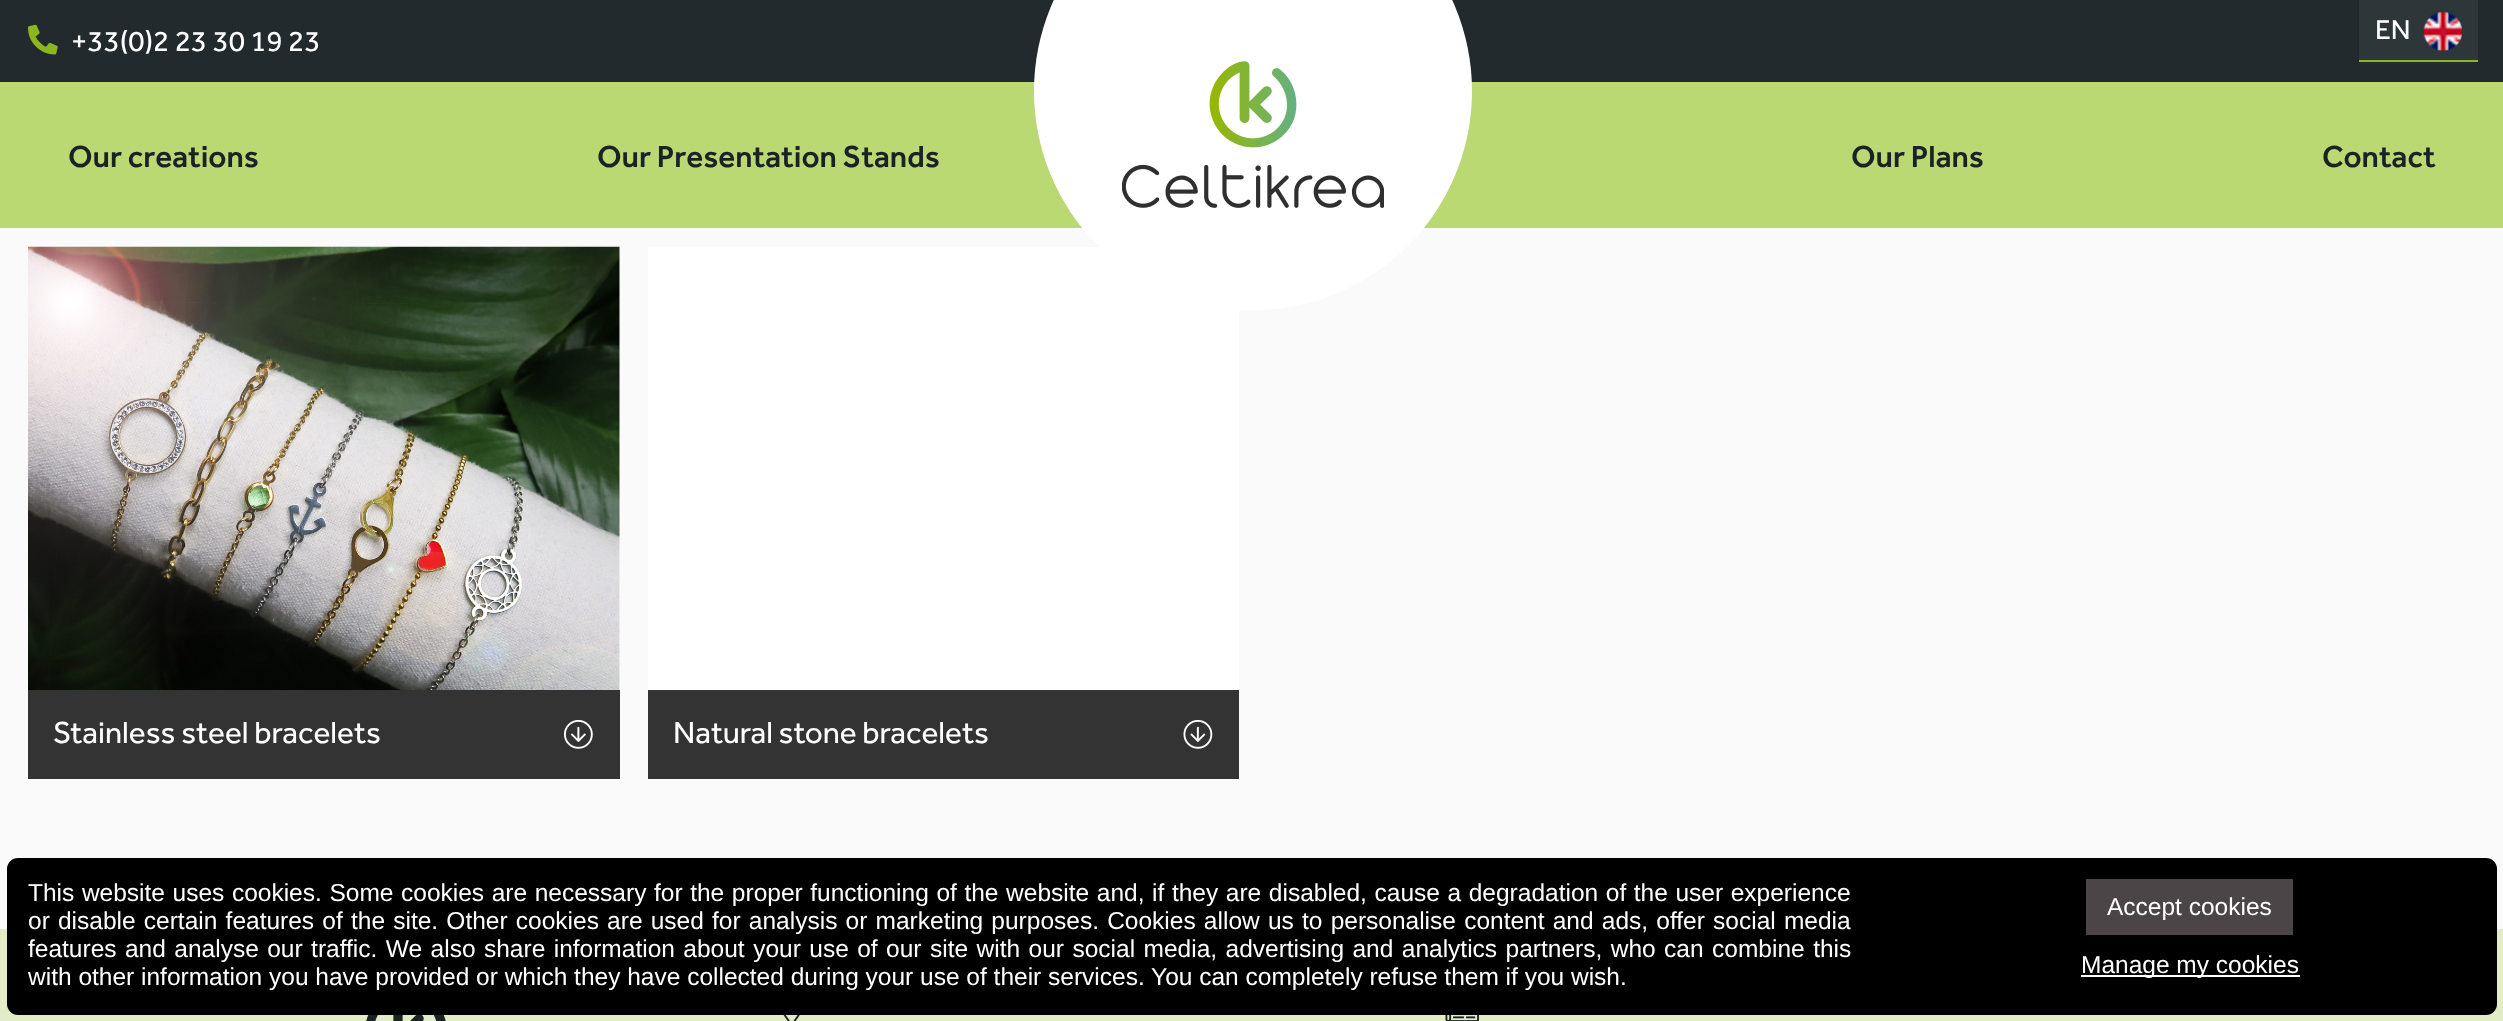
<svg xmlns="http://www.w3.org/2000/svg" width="2503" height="1021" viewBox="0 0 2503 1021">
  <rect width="100%" height="100%" fill="#fafafa"/>
  <rect x="0" y="0" width="2503" height="82" fill="#232a2d"/>
  <image x="28" y="24" width="30" height="31" href="img1.png"/>
  <text x="71" y="51" font-family="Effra" font-size="29.75" fill="#ffffff">+33(0)2 23 30 19 23</text>
  <rect x="2359" y="60" width="119" height="2" fill="#8cb61e"/>
  <rect x="2359" y="0" width="119" height="60" fill="#2d3639"/>
  <text x="2375" y="39" font-family="Effra" font-size="28" fill="#ffffff">EN</text>
  <image x="2423" y="12" width="40" height="40" href="img2.png"/>
  <rect x="0" y="82" width="2503" height="146" fill="#bad973"/>
  <rect x="648" y="247" width="591" height="443" fill="#ffffff"/>
  <circle cx="1253" cy="91" r="219" fill="#ffffff"/>
  <image x="1122" y="61" width="262" height="147" href="img3.png"/>
  <text x="68" y="167" font-family="Effra" font-size="31.5" font-weight="500" fill="#1b2226">Our creations</text>
  <text x="597" y="167" font-family="Effra" font-size="31.5" font-weight="500" fill="#1b2226">Our Presentation Stands</text>
  <text x="1851" y="167" font-family="Effra" font-size="31.5" font-weight="500" fill="#1b2226">Our Plans</text>
  <text x="2322" y="167" font-family="Effra" font-size="31.5" font-weight="500" fill="#1b2226">Contact</text>
  <rect x="619" y="247" width="1" height="443" fill="#ffffff"/>
  <image x="28" y="246" width="592" height="444" href="img4.png"/>
  <rect x="28" y="690" width="592" height="89" fill="#333333"/>
  <text x="53" y="743" font-family="Effra" font-size="31.5" fill="#ffffff">Stainless steel bracelets</text>
  <image x="564" y="719" width="29" height="30" href="img5.png"/>
  <rect x="648" y="690" width="591" height="89" fill="#333333"/>
  <text x="673" y="743" font-family="Effra" font-size="31.5" fill="#ffffff">Natural stone bracelets</text>
  <image x="1183" y="719" width="30" height="30" href="img6.png"/>
  <rect x="0" y="929" width="2503" height="92" fill="#e2edc7"/>
  <rect x="7" y="858" width="2490" height="157" rx="11" fill="#000000"/>
  <text x="28" y="901" word-spacing="0.8" font-family="Liberation Sans" font-size="24.5" fill="#ffffff">This website uses cookies. Some cookies are necessary for the proper functioning of the website and, if they are disabled, cause a degradation of the user experience</text>
  <text x="28" y="929" word-spacing="1.4" font-family="Liberation Sans" font-size="24.5" fill="#ffffff">or disable certain features of the site. Other cookies are used for analysis or marketing purposes. Cookies allow us to personalise content and ads, offer social media</text>
  <text x="28" y="957" word-spacing="1.65" font-family="Liberation Sans" font-size="24.5" fill="#ffffff">features and analyse our traffic. We also share information about your use of our site with our social media, advertising and analytics partners, who can combine this</text>
  <text x="28" y="985" font-family="Liberation Sans" font-size="24.5" fill="#ffffff">with other information you have provided or which they have collected during your use of their services. You can completely refuse them if you wish.</text>
  <rect x="2086" y="879" width="207" height="56" fill="#4c4547"/>
  <text x="2107" y="915" font-family="Liberation Sans" font-size="24.5" fill="#ffffff">Accept cookies</text>
  <rect x="2081" y="975" width="219" height="2" fill="#ffffff"/>
  <text x="2081" y="973" font-family="Liberation Sans" font-size="24.5" fill="#ffffff">Manage my cookies</text>
  <image x="366" y="1015" width="80" height="6" href="img7.png"/>
  <image x="783" y="1015" width="17" height="6" href="img8.png"/>
  <image x="1445" y="1015" width="34" height="6" href="img9.png"/>
</svg>
